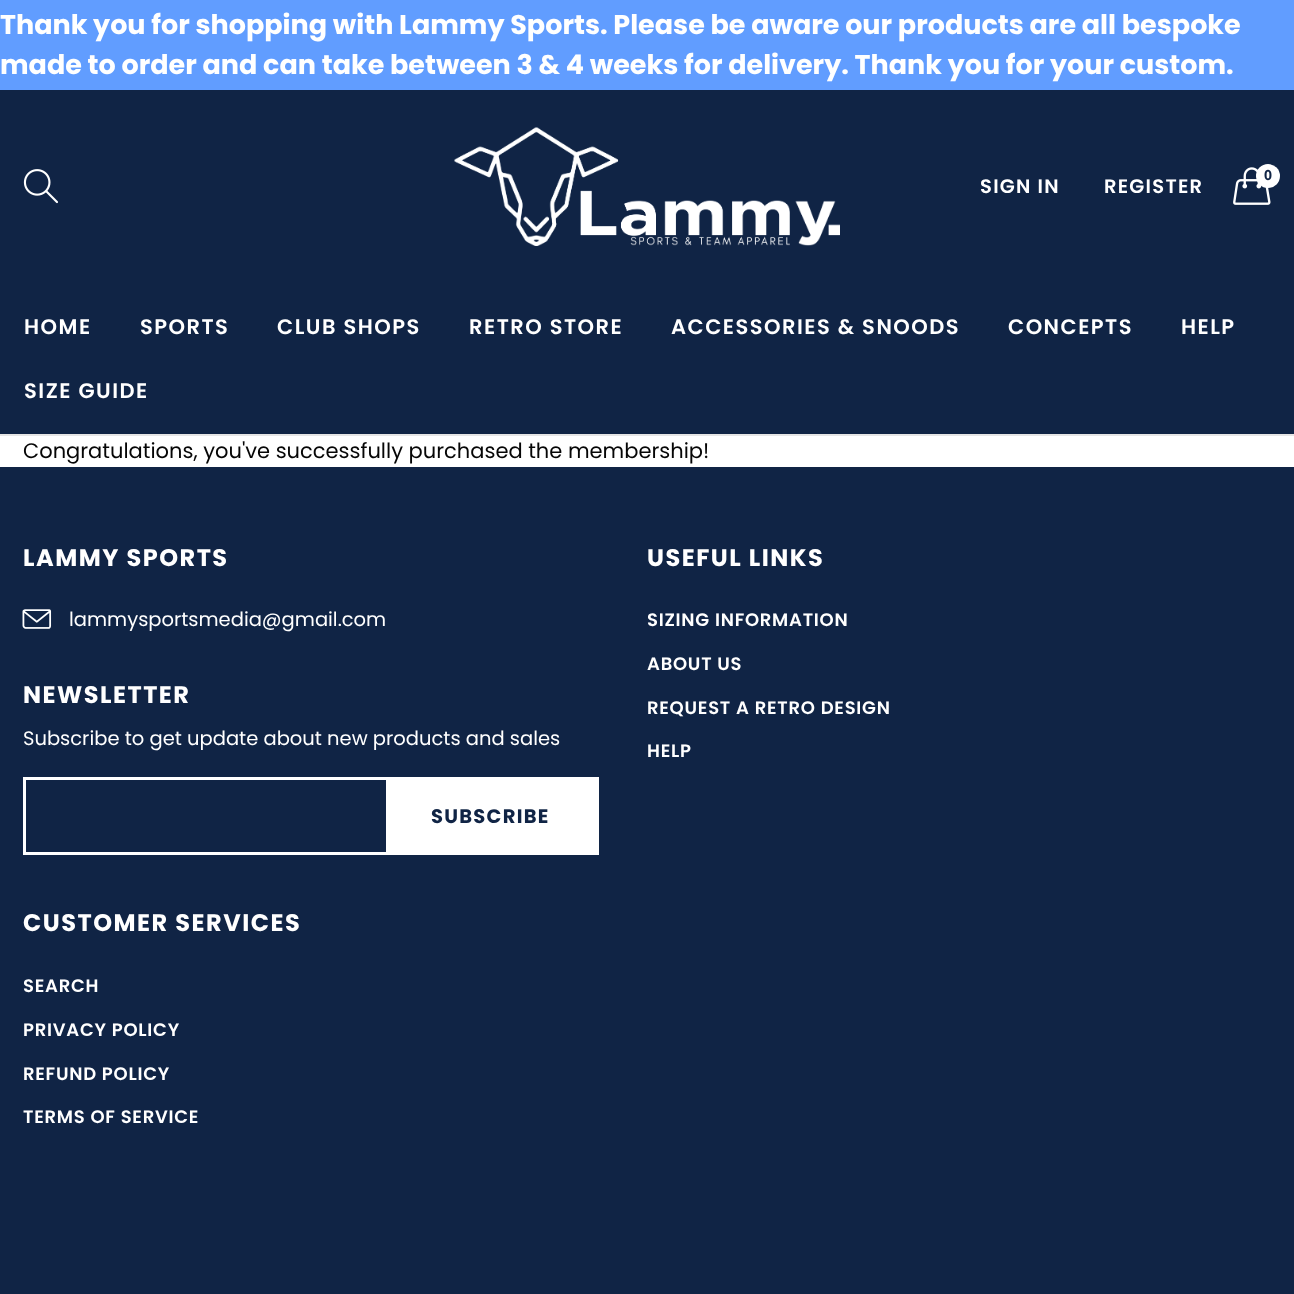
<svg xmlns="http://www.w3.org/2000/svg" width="1294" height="1294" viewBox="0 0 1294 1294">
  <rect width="100%" height="100%" fill="#ffffff"/>
  <rect x="0" y="90" width="1294" height="344" fill="#102445"/>
  <rect x="0" y="0" width="1294" height="90" fill="#619dff"/>
  <text x="0" y="34" font-family="Poppins" font-size="27" font-weight="bold" fill="#ffffff">Thank you for shopping with Lammy Sports. Please be aware our products are all bespoke</text>
  <text x="0" y="74" font-family="Poppins" font-size="27" font-weight="bold" fill="#ffffff">made to order and can take between 3 &amp; 4 weeks for delivery. Thank you for your custom.</text>
  <rect x="0" y="434" width="1294" height="2" fill="#e5e5e5"/>
  <image x="23" y="169" width="35" height="35" href="img1.png"/>
  <image x="454" y="127" width="386" height="119" href="img2.png"/>
  <image x="1233" y="167" width="38" height="38" href="img3.png"/>
  <circle cx="1268" cy="176" r="12" fill="#ffffff"/>
  <text x="1264" y="180" font-family="Open Sans" font-size="14" font-weight="bold" letter-spacing="1.25" fill="#102445">0</text>
  <text x="980" y="193" font-family="Poppins" font-size="19.5" font-weight="600" letter-spacing="1.25" fill="#ffffff">SIGN IN</text>
  <text x="1104" y="193" font-family="Poppins" font-size="19.5" font-weight="600" letter-spacing="1.25" fill="#ffffff">REGISTER</text>
  <text x="24" y="334" font-family="Poppins" font-size="21" font-weight="600" letter-spacing="1.5" fill="#ffffff">HOME</text>
  <text x="140" y="334" font-family="Poppins" font-size="21" font-weight="600" letter-spacing="1.5" fill="#ffffff">SPORTS</text>
  <text x="277" y="334" font-family="Poppins" font-size="21" font-weight="600" letter-spacing="1.5" fill="#ffffff">CLUB SHOPS</text>
  <text x="469" y="334" font-family="Poppins" font-size="21" font-weight="600" letter-spacing="1.5" fill="#ffffff">RETRO STORE</text>
  <text x="671" y="334" font-family="Poppins" font-size="21" font-weight="600" letter-spacing="1.5" fill="#ffffff">ACCESSORIES &amp; SNOODS</text>
  <text x="1008" y="334" font-family="Poppins" font-size="21" font-weight="600" letter-spacing="1.5" fill="#ffffff">CONCEPTS</text>
  <text x="1181" y="334" font-family="Poppins" font-size="21" font-weight="600" letter-spacing="1.5" fill="#ffffff">HELP</text>
  <text x="24" y="398" font-family="Poppins" font-size="21" font-weight="600" letter-spacing="1.5" fill="#ffffff">SIZE GUIDE</text>
  <text x="23" y="458" font-family="Poppins" font-size="21" fill="#060606">Congratulations, you've successfully purchased the membership!</text>
  <rect x="0" y="467" width="1294" height="827" fill="#102445"/>
  <text x="23" y="566" font-family="Poppins" font-size="24" font-weight="bold" letter-spacing="1.5" fill="#ffffff">LAMMY SPORTS</text>
  <image x="22" y="609" width="30" height="20" href="img4.png"/>
  <text x="69" y="626" font-family="Poppins" font-size="19.5" fill="#ffffff">lammysportsmedia@gmail.com</text>
  <text x="23" y="703" font-family="Poppins" font-size="24" font-weight="bold" letter-spacing="1.5" fill="#ffffff">NEWSLETTER</text>
  <text x="23" y="745" font-family="Poppins" font-size="19.5" fill="#ffffff">Subscribe to get update about new products and sales</text>
  <rect x="23" y="777" width="576" height="78" fill="#ffffff"/>
  <rect x="26" y="780" width="360" height="72" fill="#102445"/>
  <text x="431" y="823" font-family="Poppins" font-size="19.5" font-weight="bold" letter-spacing="1.25" fill="#102445">SUBSCRIBE</text>
  <text x="647" y="566" font-family="Poppins" font-size="24" font-weight="bold" letter-spacing="1.5" fill="#ffffff">USEFUL LINKS</text>
  <text x="647" y="626" font-family="Poppins" font-size="18" font-weight="600" letter-spacing="0.75" fill="#ffffff">SIZING INFORMATION</text>
  <text x="647" y="670" font-family="Poppins" font-size="18" font-weight="600" letter-spacing="0.75" fill="#ffffff">ABOUT US</text>
  <text x="647" y="714" font-family="Poppins" font-size="18" font-weight="600" letter-spacing="0.75" fill="#ffffff">REQUEST A RETRO DESIGN</text>
  <text x="647" y="757" font-family="Poppins" font-size="18" font-weight="600" letter-spacing="0.75" fill="#ffffff">HELP</text>
  <text x="23" y="931" font-family="Poppins" font-size="24" font-weight="bold" letter-spacing="1.5" fill="#ffffff">CUSTOMER SERVICES</text>
  <text x="23" y="992" font-family="Poppins" font-size="18" font-weight="600" letter-spacing="0.75" fill="#ffffff">SEARCH</text>
  <text x="23" y="1036" font-family="Poppins" font-size="18" font-weight="600" letter-spacing="0.75" fill="#ffffff">PRIVACY POLICY</text>
  <text x="23" y="1080" font-family="Poppins" font-size="18" font-weight="600" letter-spacing="0.75" fill="#ffffff">REFUND POLICY</text>
  <text x="23" y="1123" font-family="Poppins" font-size="18" font-weight="600" letter-spacing="0.75" fill="#ffffff">TERMS OF SERVICE</text>
</svg>
